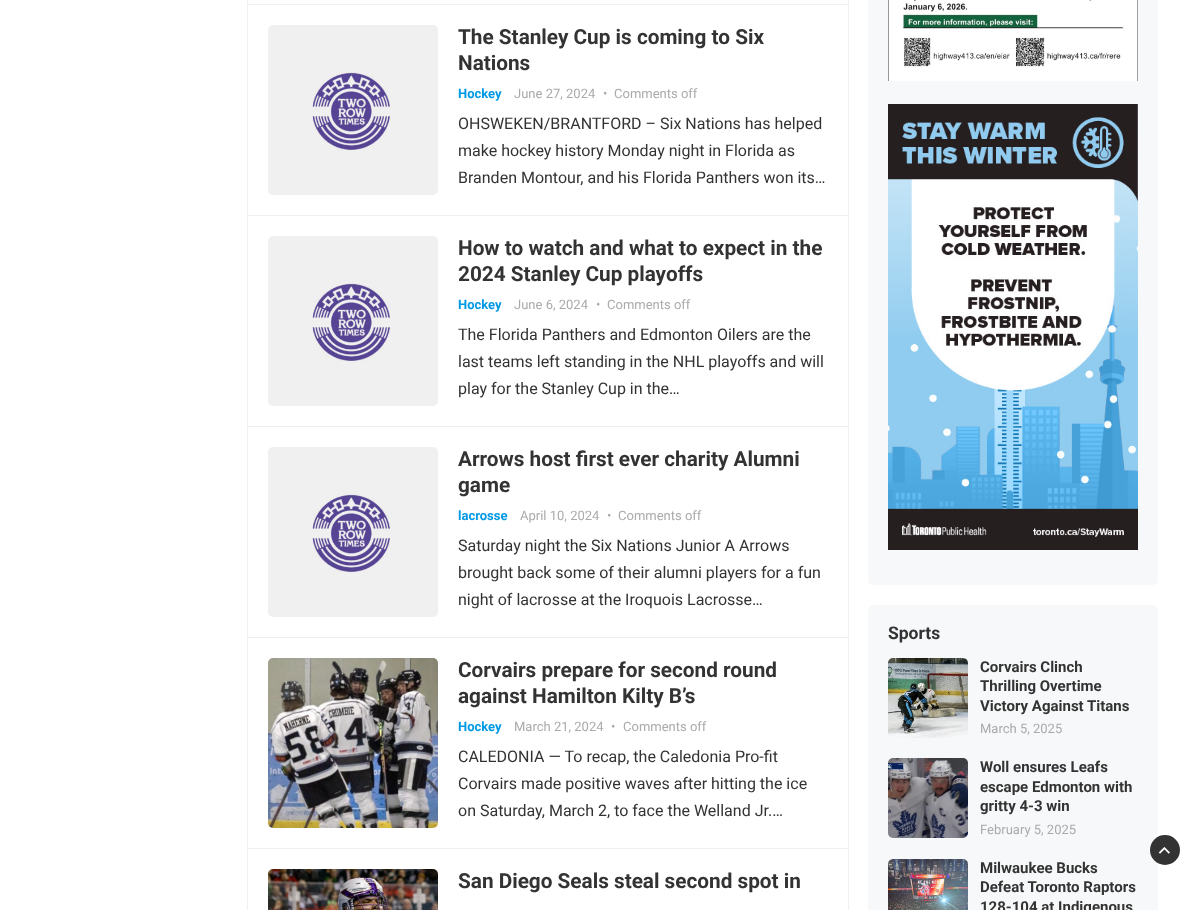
<svg xmlns="http://www.w3.org/2000/svg" width="1185" height="910" viewBox="0 0 1185 910">
  <rect width="100%" height="100%" fill="#ffffff"/>
  <rect x="247" y="0" width="1" height="910" fill="#f0f0f0"/>
  <rect x="848" y="0" width="1" height="910" fill="#f0f0f0"/>
  <rect x="248" y="4" width="600" height="1" fill="#f0f0f0"/>
  <rect x="248" y="215" width="600" height="1" fill="#f0f0f0"/>
  <image x="268" y="25" width="170" height="170" href="img1.png"/>
  <text x="458" y="44" font-family="Roboto" font-size="20.75" font-weight="bold" fill="#333333">The Stanley Cup is coming to Six</text>
  <text x="458" y="70" font-family="Roboto" font-size="20.75" font-weight="bold" fill="#333333">Nations</text>
  <text x="458" y="98" font-family="Roboto" font-size="13" font-weight="bold" fill="#0099e5">Hockey</text>
  <text x="514" y="98" font-family="Roboto" font-size="13" fill="#aaaaaa">June 27, 2024</text>
  <text x="603" y="98" font-family="Roboto" font-size="13" fill="#aaaaaa">•</text>
  <text x="614" y="98" font-family="Roboto" font-size="13" fill="#aaaaaa">Comments off</text>
  <text x="458" y="129" font-family="Roboto" font-size="16" fill="#333333">OHSWEKEN/BRANTFORD – Six Nations has helped</text>
  <text x="458" y="156" font-family="Roboto" font-size="16" fill="#333333">make hockey history Monday night in Florida as</text>
  <text x="458" y="183" font-family="Roboto" font-size="16" fill="#333333">Branden Montour, and his Florida Panthers won its…</text>
  <rect x="248" y="426" width="600" height="1" fill="#f0f0f0"/>
  <image x="268" y="236" width="170" height="170" href="img2.png"/>
  <text x="458" y="255" font-family="Roboto" font-size="20.75" font-weight="bold" fill="#333333">How to watch and what to expect in the</text>
  <text x="458" y="281" font-family="Roboto" font-size="20.75" font-weight="bold" fill="#333333">2024 Stanley Cup playoffs</text>
  <text x="458" y="309" font-family="Roboto" font-size="13" font-weight="bold" fill="#0099e5">Hockey</text>
  <text x="514" y="309" font-family="Roboto" font-size="13" fill="#aaaaaa">June 6, 2024</text>
  <text x="596" y="309" font-family="Roboto" font-size="13" fill="#aaaaaa">•</text>
  <text x="607" y="309" font-family="Roboto" font-size="13" fill="#aaaaaa">Comments off</text>
  <text x="458" y="340" font-family="Roboto" font-size="16" fill="#333333">The Florida Panthers and Edmonton Oilers are the</text>
  <text x="458" y="367" font-family="Roboto" font-size="16" fill="#333333">last teams left standing in the NHL playoffs and will</text>
  <text x="458" y="394" font-family="Roboto" font-size="16" fill="#333333">play for the Stanley Cup in the…</text>
  <rect x="248" y="637" width="600" height="1" fill="#f0f0f0"/>
  <image x="268" y="447" width="170" height="170" href="img2.png"/>
  <text x="458" y="466" font-family="Roboto" font-size="20.75" font-weight="bold" fill="#333333">Arrows host first ever charity Alumni</text>
  <text x="458" y="492" font-family="Roboto" font-size="20.75" font-weight="bold" fill="#333333">game</text>
  <text x="458" y="520" font-family="Roboto" font-size="13" font-weight="bold" fill="#0099e5">lacrosse</text>
  <text x="520" y="520" font-family="Roboto" font-size="13" fill="#aaaaaa">April 10, 2024</text>
  <text x="607" y="520" font-family="Roboto" font-size="13" fill="#aaaaaa">•</text>
  <text x="618" y="520" font-family="Roboto" font-size="13" fill="#aaaaaa">Comments off</text>
  <text x="458" y="551" font-family="Roboto" font-size="16" fill="#333333">Saturday night the Six Nations Junior A Arrows</text>
  <text x="458" y="578" font-family="Roboto" font-size="16" fill="#333333">brought back some of their alumni players for a fun</text>
  <text x="458" y="605" font-family="Roboto" font-size="16" fill="#333333">night of lacrosse at the Iroquois Lacrosse…</text>
  <rect x="248" y="848" width="600" height="1" fill="#f0f0f0"/>
  <image x="268" y="658" width="170" height="170" href="img3.png"/>
  <text x="458" y="677" font-family="Roboto" font-size="20.75" font-weight="bold" fill="#333333">Corvairs prepare for second round</text>
  <text x="458" y="703" font-family="Roboto" font-size="20.75" font-weight="bold" fill="#333333">against Hamilton Kilty B’s</text>
  <text x="458" y="731" font-family="Roboto" font-size="13" font-weight="bold" fill="#0099e5">Hockey</text>
  <text x="514" y="731" font-family="Roboto" font-size="13" fill="#aaaaaa">March 21, 2024</text>
  <text x="611" y="731" font-family="Roboto" font-size="13" fill="#aaaaaa">•</text>
  <text x="623" y="731" font-family="Roboto" font-size="13" fill="#aaaaaa">Comments off</text>
  <text x="458" y="762" font-family="Roboto" font-size="16" fill="#333333">CALEDONIA — To recap, the Caledonia Pro-fit</text>
  <text x="458" y="789" font-family="Roboto" font-size="16" fill="#333333">Corvairs made positive waves after hitting the ice</text>
  <text x="458" y="816" font-family="Roboto" font-size="16" fill="#333333">on Saturday, March 2, to face the Welland Jr.…</text>
  <image x="268" y="869" width="170" height="41" href="img4.png"/>
  <text x="458" y="888" font-family="Roboto" font-size="20.75" font-weight="bold" fill="#333333">San Diego Seals steal second spot in</text>
  <rect x="868" y="-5" width="290" height="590" rx="5" fill="#f7f8f9"/>
  <image x="888" y="0" width="250" height="81" href="img5.png"/>
  <image x="888" y="104" width="250" height="446" href="img6.png"/>
  <rect x="868" y="605" width="290" height="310" rx="5" fill="#f7f8f9"/>
  <text x="888" y="639" font-family="Roboto" font-size="17.5" font-weight="bold" fill="#333333">Sports</text>
  <image x="888" y="658" width="80" height="80" href="img7.png"/>
  <text x="980" y="672" font-family="Roboto" font-size="15" font-weight="bold" fill="#333333">Corvairs Clinch</text>
  <text x="980" y="691" font-family="Roboto" font-size="15" font-weight="bold" fill="#333333">Thrilling Overtime</text>
  <text x="980" y="711" font-family="Roboto" font-size="15" font-weight="bold" fill="#333333">Victory Against Titans</text>
  <text x="980" y="733" font-family="Roboto" font-size="13" fill="#aaaaaa">March 5, 2025</text>
  <image x="888" y="758" width="80" height="80" href="img8.png"/>
  <text x="980" y="772" font-family="Roboto" font-size="15" font-weight="bold" fill="#333333">Woll ensures Leafs</text>
  <text x="980" y="792" font-family="Roboto" font-size="15" font-weight="bold" fill="#333333">escape Edmonton with</text>
  <text x="980" y="811" font-family="Roboto" font-size="15" font-weight="bold" fill="#333333">gritty 4-3 win</text>
  <text x="980" y="834" font-family="Roboto" font-size="13" fill="#aaaaaa">February 5, 2025</text>
  <image x="888" y="859" width="80" height="51" href="img9.png"/>
  <text x="980" y="873" font-family="Roboto" font-size="15" font-weight="bold" fill="#333333">Milwaukee Bucks</text>
  <text x="980" y="892" font-family="Roboto" font-size="15" font-weight="bold" fill="#333333">Defeat Toronto Raptors</text>
  <text x="980" y="912" font-family="Roboto" font-size="15" font-weight="bold" fill="#333333">128-104 at Indigenous</text>
  <circle cx="1165" cy="850" r="15" fill="#333333"/>
  <image x="1158" y="847" width="12" height="7" href="img10.png"/>
</svg>
